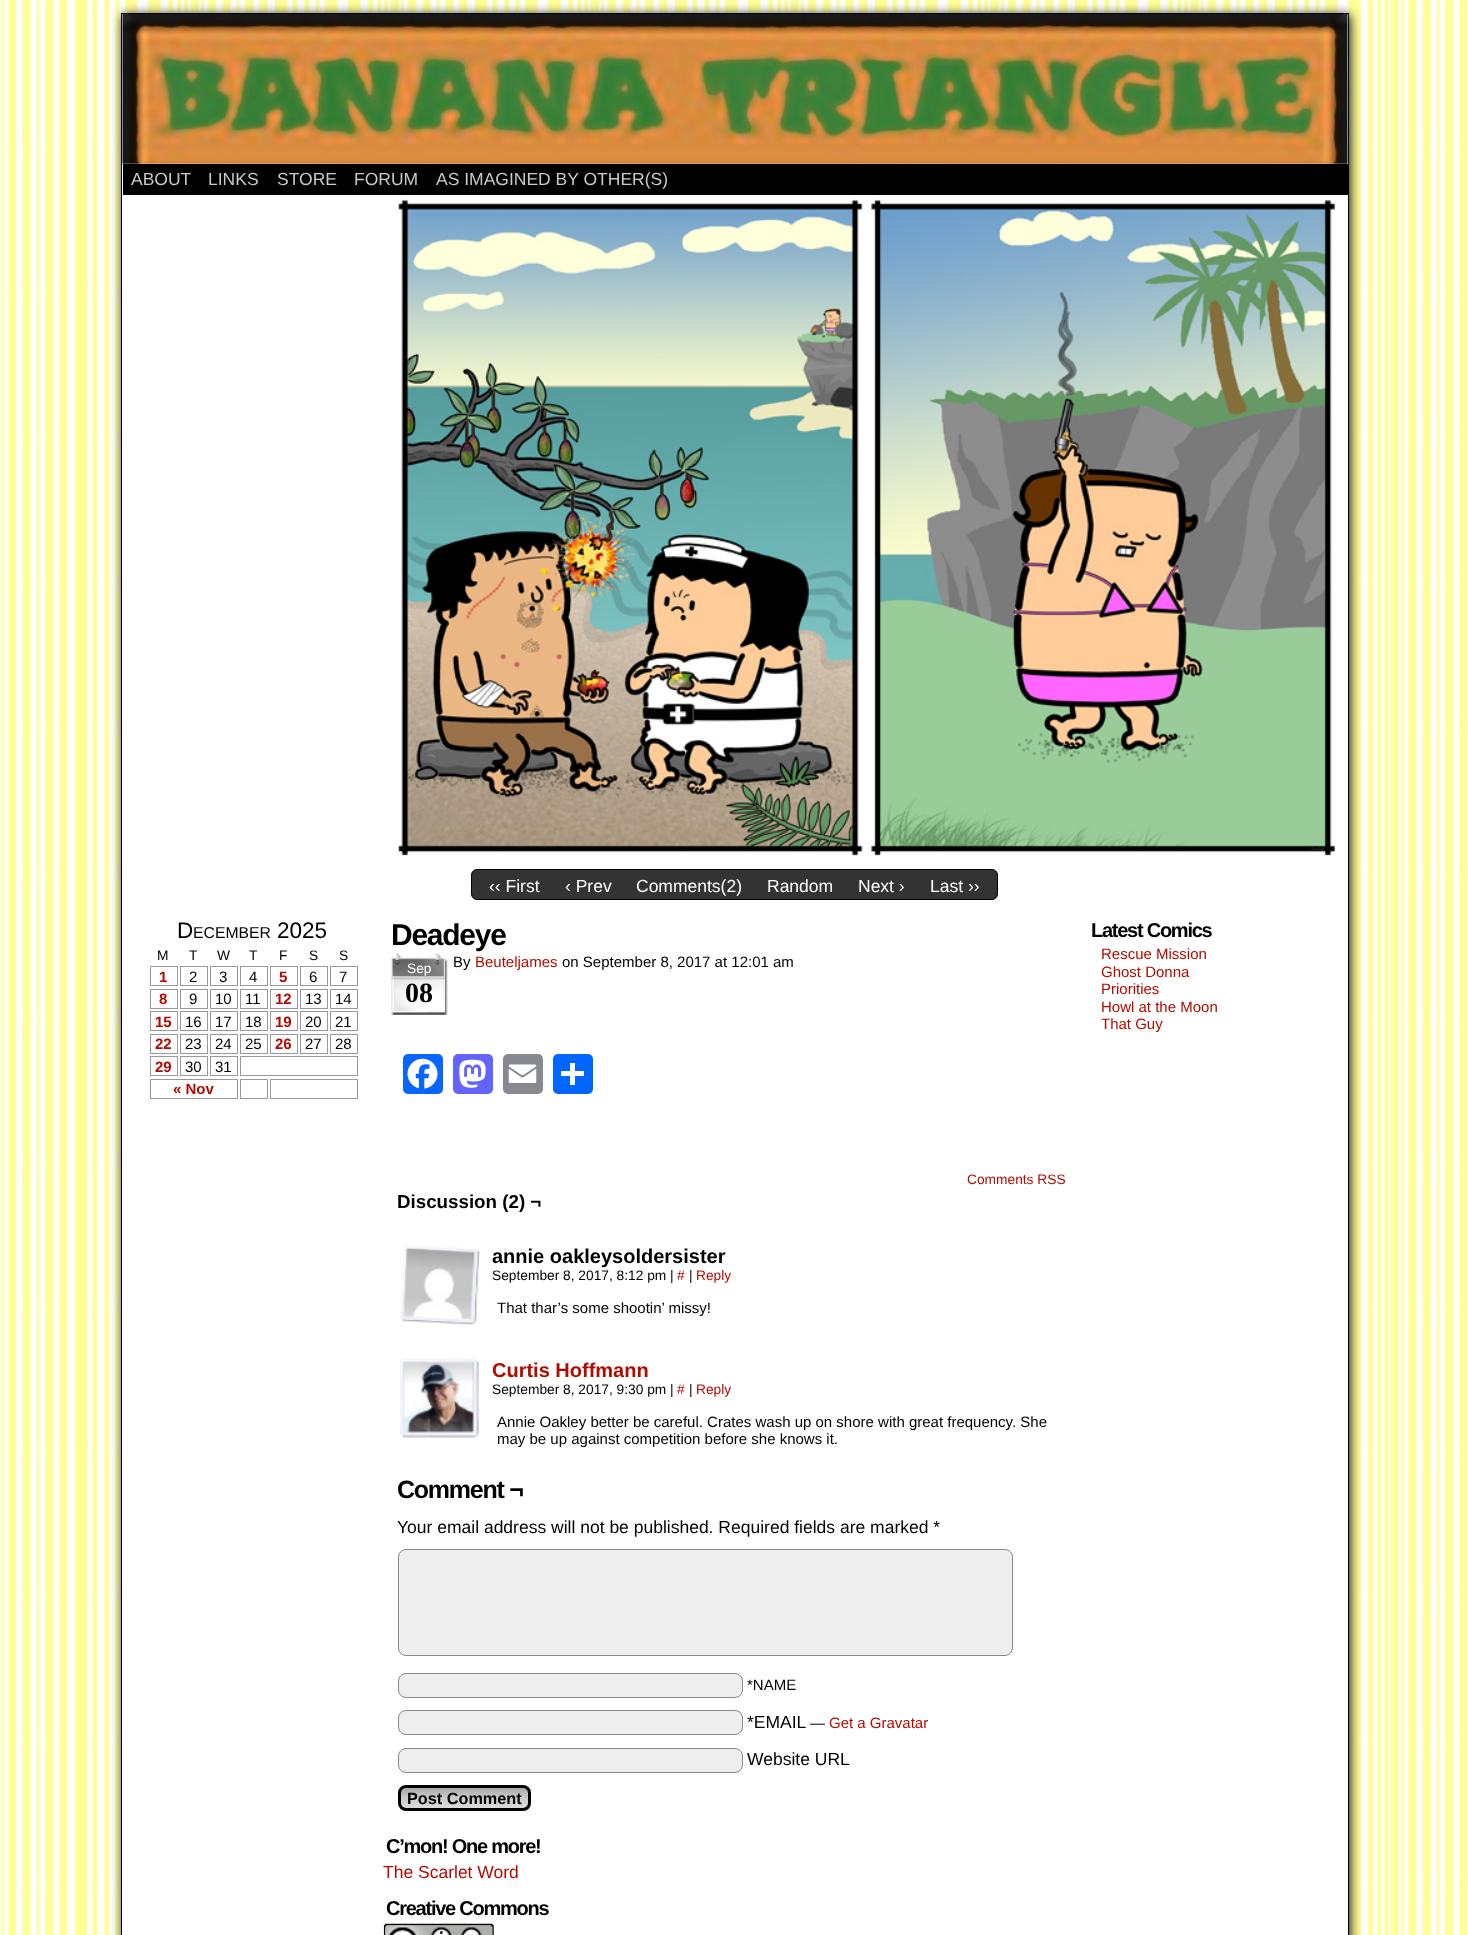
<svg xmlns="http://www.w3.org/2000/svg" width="1468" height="1935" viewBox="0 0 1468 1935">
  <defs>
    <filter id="blur1" x="-50%" y="-200%" width="200%" height="500%"><feGaussianBlur stdDeviation="6"/></filter>
    <clipPath id="clip1"><rect x="398" y="1785" width="133" height="26" rx="8"/></clipPath>
    <linearGradient id="g1" gradientUnits="userSpaceOnUse" x1="464" y1="1788" x2="464" y2="1809"><stop offset="0" stop-color="#aaaaaa"/><stop offset="0.5" stop-color="#cccccc"/><stop offset="1" stop-color="#dddddd"/></linearGradient>
  </defs>
  <rect width="100%" height="100%" fill="#ffffff"/>
  <image x="0" y="0" width="1468" height="1935" href="img1.png"/>
  <rect x="123" y="15" width="1227" height="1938" fill="#000000" filter="url(#blur1)"/>
  <rect x="121.5" y="13.5" width="1227" height="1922" fill="#ffffff" stroke="#000000"/>
  <image x="122" y="13" width="1226" height="151" href="img2.png"/>
  <rect x="123" y="164" width="1225" height="31" fill="#000000"/>
  <text x="131" y="185" font-family="Liberation Sans" font-size="17.5" fill="#c9c9c9">ABOUT</text>
  <text x="208" y="185" font-family="Liberation Sans" font-size="17.5" fill="#c9c9c9">LINKS</text>
  <text x="277" y="185" font-family="Liberation Sans" font-size="17.5" fill="#c9c9c9">STORE</text>
  <text x="354" y="185" font-family="Liberation Sans" font-size="17.5" fill="#c9c9c9">FORUM</text>
  <text x="436" y="185" font-family="Liberation Sans" font-size="17.5" fill="#c9c9c9">AS IMAGINED BY OTHER(S)</text>
  <image x="398" y="199" width="938" height="657" href="img3.png"/>
  <rect x="471.5" y="869.5" width="526" height="30" rx="5.5" fill="#333333" stroke="#000000"/>
  <text x="489" y="892" font-family="Liberation Sans" font-size="17.5" fill="#ffffff">‹‹ First</text>
  <text x="565" y="892" font-family="Liberation Sans" font-size="17.5" fill="#ffffff">‹ Prev</text>
  <text x="636" y="892" font-family="Liberation Sans" font-size="17.5" fill="#ffffff">Comments(2)</text>
  <text x="767" y="892" font-family="Liberation Sans" font-size="17.5" fill="#ffffff">Random</text>
  <text x="858" y="892" font-family="Liberation Sans" font-size="17.5" fill="#ffffff">Next ›</text>
  <text x="930" y="892" font-family="Liberation Sans" font-size="17.5" fill="#ffffff">Last ››</text>
  <text x="177" y="938" font-family="Liberation Sans" font-size="22.5" fill="#000000">D</text>
  <text x="193" y="938" font-family="Liberation Sans" font-size="15.75" fill="#000000">ECEMBER</text>
  <text x="277" y="938" font-family="Liberation Sans" font-size="22.5" fill="#000000">2025</text>
  <text x="157" y="960" font-family="Liberation Sans" font-size="13.75" fill="#000000">M</text>
  <text x="189" y="960" font-family="Liberation Sans" font-size="13.75" fill="#000000">T</text>
  <text x="217" y="960" font-family="Liberation Sans" font-size="13.75" fill="#000000">W</text>
  <text x="249" y="960" font-family="Liberation Sans" font-size="13.75" fill="#000000">T</text>
  <text x="279" y="960" font-family="Liberation Sans" font-size="13.75" fill="#000000">F</text>
  <text x="309" y="960" font-family="Liberation Sans" font-size="13.75" fill="#000000">S</text>
  <text x="339" y="960" font-family="Liberation Sans" font-size="13.75" fill="#000000">S</text>
  <rect x="150.5" y="966.5" width="27" height="19" fill="none" stroke="#999999"/>
  <text x="159" y="982" font-family="Liberation Sans" font-size="15" font-weight="bold" fill="#b00b00">1</text>
  <rect x="180.5" y="966.5" width="27" height="19" fill="none" stroke="#999999"/>
  <text x="189" y="982" font-family="Liberation Sans" font-size="15" fill="#000000">2</text>
  <rect x="210.5" y="966.5" width="27" height="19" fill="none" stroke="#999999"/>
  <text x="219" y="982" font-family="Liberation Sans" font-size="15" fill="#000000">3</text>
  <rect x="240.5" y="966.5" width="27" height="19" fill="none" stroke="#999999"/>
  <text x="249" y="982" font-family="Liberation Sans" font-size="15" fill="#000000">4</text>
  <rect x="270.5" y="966.5" width="27" height="19" fill="none" stroke="#999999"/>
  <text x="279" y="982" font-family="Liberation Sans" font-size="15" font-weight="bold" fill="#b00b00">5</text>
  <rect x="300.5" y="966.5" width="27" height="19" fill="none" stroke="#999999"/>
  <text x="309" y="982" font-family="Liberation Sans" font-size="15" fill="#000000">6</text>
  <rect x="330.5" y="966.5" width="27" height="19" fill="none" stroke="#999999"/>
  <text x="339" y="982" font-family="Liberation Sans" font-size="15" fill="#000000">7</text>
  <rect x="150.5" y="989.5" width="27" height="19" fill="none" stroke="#999999"/>
  <text x="159" y="1004" font-family="Liberation Sans" font-size="15" font-weight="bold" fill="#b00b00">8</text>
  <rect x="180.5" y="989.5" width="27" height="19" fill="none" stroke="#999999"/>
  <text x="189" y="1004" font-family="Liberation Sans" font-size="15" fill="#000000">9</text>
  <rect x="210.5" y="989.5" width="27" height="19" fill="none" stroke="#999999"/>
  <text x="215" y="1004" font-family="Liberation Sans" font-size="15" fill="#000000">10</text>
  <rect x="240.5" y="989.5" width="27" height="19" fill="none" stroke="#999999"/>
  <text x="245" y="1004" font-family="Liberation Sans" font-size="15" fill="#000000">11</text>
  <rect x="270.5" y="989.5" width="27" height="19" fill="none" stroke="#999999"/>
  <text x="275" y="1004" font-family="Liberation Sans" font-size="15" font-weight="bold" fill="#b00b00">12</text>
  <rect x="300.5" y="989.5" width="27" height="19" fill="none" stroke="#999999"/>
  <text x="305" y="1004" font-family="Liberation Sans" font-size="15" fill="#000000">13</text>
  <rect x="330.5" y="989.5" width="27" height="19" fill="none" stroke="#999999"/>
  <text x="335" y="1004" font-family="Liberation Sans" font-size="15" fill="#000000">14</text>
  <rect x="150.5" y="1011.5" width="27" height="19" fill="none" stroke="#999999"/>
  <text x="155" y="1027" font-family="Liberation Sans" font-size="15" font-weight="bold" fill="#b00b00">15</text>
  <rect x="180.5" y="1011.5" width="27" height="19" fill="none" stroke="#999999"/>
  <text x="185" y="1027" font-family="Liberation Sans" font-size="15" fill="#000000">16</text>
  <rect x="210.5" y="1011.5" width="27" height="19" fill="none" stroke="#999999"/>
  <text x="215" y="1027" font-family="Liberation Sans" font-size="15" fill="#000000">17</text>
  <rect x="240.5" y="1011.5" width="27" height="19" fill="none" stroke="#999999"/>
  <text x="245" y="1027" font-family="Liberation Sans" font-size="15" fill="#000000">18</text>
  <rect x="270.5" y="1011.5" width="27" height="19" fill="none" stroke="#999999"/>
  <text x="275" y="1027" font-family="Liberation Sans" font-size="15" font-weight="bold" fill="#b00b00">19</text>
  <rect x="300.5" y="1011.5" width="27" height="19" fill="none" stroke="#999999"/>
  <text x="305" y="1027" font-family="Liberation Sans" font-size="15" fill="#000000">20</text>
  <rect x="330.5" y="1011.5" width="27" height="19" fill="none" stroke="#999999"/>
  <text x="335" y="1027" font-family="Liberation Sans" font-size="15" fill="#000000">21</text>
  <rect x="150.5" y="1034.5" width="27" height="19" fill="none" stroke="#999999"/>
  <text x="155" y="1049" font-family="Liberation Sans" font-size="15" font-weight="bold" fill="#b00b00">22</text>
  <rect x="180.5" y="1034.5" width="27" height="19" fill="none" stroke="#999999"/>
  <text x="185" y="1049" font-family="Liberation Sans" font-size="15" fill="#000000">23</text>
  <rect x="210.5" y="1034.5" width="27" height="19" fill="none" stroke="#999999"/>
  <text x="215" y="1049" font-family="Liberation Sans" font-size="15" fill="#000000">24</text>
  <rect x="240.5" y="1034.5" width="27" height="19" fill="none" stroke="#999999"/>
  <text x="245" y="1049" font-family="Liberation Sans" font-size="15" fill="#000000">25</text>
  <rect x="270.5" y="1034.5" width="27" height="19" fill="none" stroke="#999999"/>
  <text x="275" y="1049" font-family="Liberation Sans" font-size="15" font-weight="bold" fill="#b00b00">26</text>
  <rect x="300.5" y="1034.5" width="27" height="19" fill="none" stroke="#999999"/>
  <text x="305" y="1049" font-family="Liberation Sans" font-size="15" fill="#000000">27</text>
  <rect x="330.5" y="1034.5" width="27" height="19" fill="none" stroke="#999999"/>
  <text x="335" y="1049" font-family="Liberation Sans" font-size="15" fill="#000000">28</text>
  <rect x="150.5" y="1056.5" width="27" height="19" fill="none" stroke="#999999"/>
  <text x="155" y="1072" font-family="Liberation Sans" font-size="15" font-weight="bold" fill="#b00b00">29</text>
  <rect x="180.5" y="1056.5" width="27" height="19" fill="none" stroke="#999999"/>
  <text x="185" y="1072" font-family="Liberation Sans" font-size="15" fill="#000000">30</text>
  <rect x="210.5" y="1056.5" width="27" height="19" fill="none" stroke="#999999"/>
  <text x="215" y="1072" font-family="Liberation Sans" font-size="15" fill="#000000">31</text>
  <rect x="240.5" y="1056.5" width="117" height="19" fill="none" stroke="#999999"/>
  <rect x="150.5" y="1079.5" width="87" height="19" fill="none" stroke="#999999"/>
  <text x="173" y="1094" font-family="Liberation Sans" font-size="15" font-weight="bold" fill="#b00b00">« Nov</text>
  <rect x="240.5" y="1079.5" width="27" height="19" fill="none" stroke="#999999"/>
  <rect x="270.5" y="1079.5" width="87" height="19" fill="none" stroke="#999999"/>
  <text x="391" y="945" font-family="Liberation Sans" font-size="30" font-weight="bold" letter-spacing="-1.25" fill="#000000">Deadeye</text>
  <image x="391" y="953" width="57" height="62" href="img4.png"/>
  <text x="407" y="973" font-family="Liberation Sans" font-size="13.75" fill="#ffffff">Sep</text>
  <text x="405" y="1002" font-family="Liberation Serif" font-size="28" font-weight="bold" fill="#000000">08</text>
  <text x="453" y="967" font-family="Liberation Sans" font-size="15" fill="#000000">By</text>
  <text x="475" y="967" font-family="Liberation Sans" font-size="15" fill="#b00b00">Beuteljames</text>
  <text x="562" y="967" font-family="Liberation Sans" font-size="15" fill="#000000">on September 8, 2017 at 12:01 am</text>
  <rect x="403" y="1054" width="40" height="40" rx="5" fill="#0866ff"/>
  <image x="407" y="1058" width="31" height="31" href="img5.png"/>
  <rect x="453" y="1054" width="40" height="40" rx="5" fill="#6364ff"/>
  <image x="459" y="1059" width="27" height="29" href="img6.png"/>
  <rect x="503" y="1054" width="40" height="40" rx="5" fill="#888990"/>
  <image x="508" y="1064" width="29" height="19" href="img7.png"/>
  <rect x="553" y="1054" width="40" height="40" rx="5" fill="#0166ff"/>
  <rect x="570" y="1063" width="5" height="22" fill="#ffffff"/>
  <rect x="561" y="1071" width="23" height="5" fill="#ffffff"/>
  <text x="967" y="1184" font-family="Liberation Sans" font-size="13.75" fill="#b00b00">Comments RSS</text>
  <text x="397" y="1208" font-family="Liberation Sans" font-size="18.75" font-weight="bold" fill="#000000">Discussion (2) ¬</text>
  <image x="400" y="1245" width="80" height="80" href="img8.png"/>
  <text x="492" y="1263" font-family="Liberation Sans" font-size="20" font-weight="bold" fill="#000000">annie oakleysoldersister</text>
  <text x="492" y="1280" font-family="Liberation Sans" font-size="13.75" fill="#000000">September 8, 2017, 8:12 pm |</text>
  <text x="677" y="1280" font-family="Liberation Sans" font-size="13.75" fill="#b00b00">#</text>
  <text x="689" y="1280" font-family="Liberation Sans" font-size="13.75" fill="#000000">|</text>
  <text x="696" y="1280" font-family="Liberation Sans" font-size="13.75" fill="#b00b00">Reply</text>
  <text x="497" y="1313" font-family="Liberation Sans" font-size="15" fill="#000000">That thar’s some shootin’ missy!</text>
  <image x="400" y="1358" width="79" height="80" href="img9.png"/>
  <text x="492" y="1377" font-family="Liberation Sans" font-size="20" font-weight="bold" fill="#b00b00">Curtis Hoffmann</text>
  <text x="492" y="1394" font-family="Liberation Sans" font-size="13.75" fill="#000000">September 8, 2017, 9:30 pm |</text>
  <text x="677" y="1394" font-family="Liberation Sans" font-size="13.75" fill="#b00b00">#</text>
  <text x="689" y="1394" font-family="Liberation Sans" font-size="13.75" fill="#000000">|</text>
  <text x="696" y="1394" font-family="Liberation Sans" font-size="13.75" fill="#b00b00">Reply</text>
  <text x="497" y="1427" font-family="Liberation Sans" font-size="15" fill="#000000">Annie Oakley better be careful. Crates wash up on shore with great frequency. She</text>
  <text x="497" y="1444" font-family="Liberation Sans" font-size="15" fill="#000000">may be up against competition before she knows it.</text>
  <text x="397" y="1498" font-family="Liberation Sans" font-size="25" font-weight="bold" letter-spacing="-1.25" fill="#000000">Comment ¬</text>
  <text x="397" y="1533" font-family="Liberation Sans" font-size="17.5" fill="#000000">Your email address will not be published. Required fields are marked *</text>
  <rect x="398.5" y="1549.5" width="614" height="106" rx="7.5" fill="#eeeeee" stroke="#888888"/>
  <rect x="398.5" y="1673.5" width="344" height="24" rx="7.5" fill="#eeeeee" stroke="#888888"/>
  <text x="747" y="1690" font-family="Liberation Sans" font-size="15" fill="#000000">*NAME</text>
  <rect x="398.5" y="1710.5" width="344" height="24" rx="7.5" fill="#eeeeee" stroke="#888888"/>
  <text x="747" y="1728" font-family="Liberation Sans" font-size="17.5" fill="#000000">*EMAIL</text>
  <text x="810" y="1728" font-family="Liberation Sans" font-size="15" fill="#000000">—</text>
  <text x="829" y="1728" font-family="Liberation Sans" font-size="15" fill="#b00b00">Get a Gravatar</text>
  <rect x="398.5" y="1748.5" width="344" height="24" rx="7.5" fill="#eeeeee" stroke="#888888"/>
  <text x="747" y="1765" font-family="Liberation Sans" font-size="17.5" fill="#000000">Website URL</text>
  <g clip-path="url(#clip1)">
    <rect x="398" y="1788" width="133" height="21" fill="url(#g1)"/>
  </g>
  <rect x="399.5" y="1786.5" width="130" height="23" rx="6.5" fill="none" stroke="#000000" stroke-width="3"/>
  <text x="407" y="1804" font-family="Liberation Sans" font-size="16.25" font-weight="bold" fill="#000000">Post Comment</text>
  <text x="386" y="1853" font-family="Liberation Sans" font-size="20" font-weight="bold" letter-spacing="-1.25" fill="#000000">C’mon! One more!</text>
  <text x="383" y="1878" font-family="Liberation Sans" font-size="17.5" fill="#b00b00">The Scarlet Word</text>
  <text x="386" y="1915" font-family="Liberation Sans" font-size="20" font-weight="bold" letter-spacing="-1.25" fill="#000000">Creative Commons</text>
  <image x="383" y="1923" width="111" height="12" href="img10.png"/>
  <text x="1091" y="937" font-family="Liberation Sans" font-size="20" font-weight="bold" letter-spacing="-1.25" fill="#000000">Latest Comics</text>
  <text x="1101" y="959" font-family="Liberation Sans" font-size="15" fill="#b00b00">Rescue Mission</text>
  <text x="1101" y="977" font-family="Liberation Sans" font-size="15" fill="#b00b00">Ghost Donna</text>
  <text x="1101" y="994" font-family="Liberation Sans" font-size="15" fill="#b00b00">Priorities</text>
  <text x="1101" y="1012" font-family="Liberation Sans" font-size="15" fill="#b00b00">Howl at the Moon</text>
  <text x="1101" y="1029" font-family="Liberation Sans" font-size="15" fill="#b00b00">That Guy</text>
</svg>
